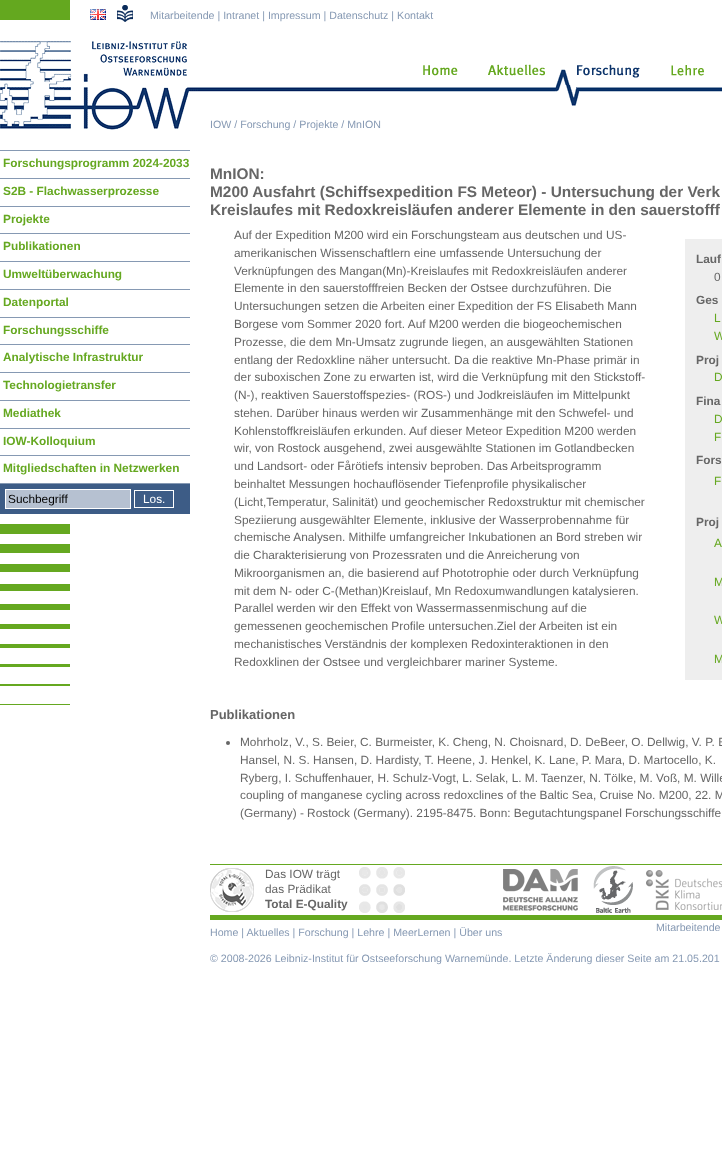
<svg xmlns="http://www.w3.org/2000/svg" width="722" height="1162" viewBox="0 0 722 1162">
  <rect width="100%" height="100%" fill="#ffffff"/>
  <image x="0" y="0" width="722" height="130" href="img1.png"/>
  <image x="90" y="9" width="16" height="11" href="img2.png"/>
  <image x="117" y="5" width="16" height="17" href="img3.png"/>
  <text x="150" y="19" font-family="Liberation Sans" font-size="10.65" fill="#8699b3">Mitarbeitende | Intranet | Impressum | Datenschutz | Kontakt</text>
  <rect x="400" y="87" width="322" height="5" fill="#ffffff"/>
  <image x="467" y="64" width="88" height="28" href="img4.png"/>
  <image x="555" y="64" width="94" height="42" href="img5.png"/>
  <image x="400" y="65" width="67" height="27" href="img6.png"/>
  <image x="649" y="65" width="73" height="27" href="img7.png"/>
  <text x="210" y="128" font-family="Liberation Sans" font-size="10.65" fill="#8699b3">IOW / Forschung / Projekte / MnION</text>
  <rect x="0" y="483" width="190" height="1" fill="#8699b3"/>
  <rect x="0" y="150" width="190" height="1" fill="#8699b3"/>
  <text x="3" y="167" font-family="Liberation Sans" font-size="11.85" font-weight="bold" fill="#65a820">Forschungsprogramm 2024-2033</text>
  <rect x="0" y="178" width="190" height="1" fill="#8699b3"/>
  <text x="3" y="195" font-family="Liberation Sans" font-size="11.85" font-weight="bold" fill="#65a820">S2B - Flachwasserprozesse</text>
  <rect x="0" y="206" width="190" height="1" fill="#8699b3"/>
  <text x="3" y="223" font-family="Liberation Sans" font-size="11.85" font-weight="bold" fill="#65a820">Projekte</text>
  <rect x="0" y="233" width="190" height="1" fill="#8699b3"/>
  <text x="3" y="250" font-family="Liberation Sans" font-size="11.85" font-weight="bold" fill="#65a820">Publikationen</text>
  <rect x="0" y="261" width="190" height="1" fill="#8699b3"/>
  <text x="3" y="278" font-family="Liberation Sans" font-size="11.85" font-weight="bold" fill="#65a820">Umweltüberwachung</text>
  <rect x="0" y="289" width="190" height="1" fill="#8699b3"/>
  <text x="3" y="306" font-family="Liberation Sans" font-size="11.85" font-weight="bold" fill="#65a820">Datenportal</text>
  <rect x="0" y="317" width="190" height="1" fill="#8699b3"/>
  <text x="3" y="334" font-family="Liberation Sans" font-size="11.85" font-weight="bold" fill="#65a820">Forschungsschiffe</text>
  <rect x="0" y="344" width="190" height="1" fill="#8699b3"/>
  <text x="3" y="361" font-family="Liberation Sans" font-size="11.85" font-weight="bold" fill="#65a820">Analytische Infrastruktur</text>
  <rect x="0" y="372" width="190" height="1" fill="#8699b3"/>
  <text x="3" y="389" font-family="Liberation Sans" font-size="11.85" font-weight="bold" fill="#65a820">Technologietransfer</text>
  <rect x="0" y="400" width="190" height="1" fill="#8699b3"/>
  <text x="3" y="417" font-family="Liberation Sans" font-size="11.85" font-weight="bold" fill="#65a820">Mediathek</text>
  <rect x="0" y="428" width="190" height="1" fill="#8699b3"/>
  <text x="3" y="445" font-family="Liberation Sans" font-size="11.85" font-weight="bold" fill="#65a820">IOW-Kolloquium</text>
  <rect x="0" y="455" width="190" height="1" fill="#8699b3"/>
  <text x="3" y="472" font-family="Liberation Sans" font-size="11.85" font-weight="bold" fill="#65a820">Mitgliedschaften in Netzwerken</text>
  <rect x="0" y="484" width="190" height="30" fill="#3d5c86"/>
  <rect x="5.5" y="489.5" width="125" height="19" fill="#b6c1d1" stroke="#ffffff"/>
  <text x="8" y="503" font-family="Liberation Sans" font-size="11.85" fill="#000000">Suchbegriff</text>
  <rect x="134.5" y="490.5" width="39" height="17" fill="none" stroke="#ffffff"/>
  <text x="143" y="503" font-family="Liberation Sans" font-size="11.85" fill="#ffffff">Los.</text>
  <image x="0" y="524" width="70" height="181" href="img8.png"/>
  <text x="210" y="179" font-family="Liberation Sans" font-size="15.4" font-weight="bold" fill="#666666">MnION:</text>
  <text x="210" y="197" font-family="Liberation Sans" font-size="15.4" font-weight="bold" fill="#666666">M200 Ausfahrt (Schiffsexpedition FS Meteor) - Untersuchung der Verk</text>
  <text x="210" y="215" font-family="Liberation Sans" font-size="15.4" font-weight="bold" fill="#666666">Kreislaufes mit Redoxkreisläufen anderer Elemente in den sauerstofff</text>
  <text x="234" y="239" font-family="Liberation Sans" font-size="11.85" fill="#666666">Auf der Expedition M200 wird ein Forschungsteam aus deutschen und US-</text>
  <text x="234" y="257" font-family="Liberation Sans" font-size="11.85" fill="#666666">amerikanischen Wissenschaftlern eine umfassende Untersuchung der</text>
  <text x="234" y="275" font-family="Liberation Sans" font-size="11.85" fill="#666666">Verknüpfungen des Mangan(Mn)-Kreislaufes mit Redoxkreisläufen anderer</text>
  <text x="234" y="292" font-family="Liberation Sans" font-size="11.85" fill="#666666">Elemente in den sauerstofffreien Becken der Ostsee durchzuführen. Die</text>
  <text x="234" y="310" font-family="Liberation Sans" font-size="11.85" fill="#666666">Untersuchungen setzen die Arbeiten einer Expedition der FS Elisabeth Mann</text>
  <text x="234" y="328" font-family="Liberation Sans" font-size="11.85" fill="#666666">Borgese vom Sommer 2020 fort. Auf M200 werden die biogeochemischen</text>
  <text x="234" y="346" font-family="Liberation Sans" font-size="11.85" fill="#666666">Prozesse, die dem Mn-Umsatz zugrunde liegen, an ausgewählten Stationen</text>
  <text x="234" y="364" font-family="Liberation Sans" font-size="11.85" fill="#666666">entlang der Redoxkline näher untersucht. Da die reaktive Mn-Phase primär in</text>
  <text x="234" y="381" font-family="Liberation Sans" font-size="11.85" fill="#666666">der suboxischen Zone zu erwarten ist, wird die Verknüpfung mit den Stickstoff-</text>
  <text x="234" y="399" font-family="Liberation Sans" font-size="11.85" fill="#666666">(N-), reaktiven Sauerstoffspezies- (ROS-) und Jodkreisläufen im Mittelpunkt</text>
  <text x="234" y="417" font-family="Liberation Sans" font-size="11.85" fill="#666666">stehen. Darüber hinaus werden wir Zusammenhänge mit den Schwefel- und</text>
  <text x="234" y="435" font-family="Liberation Sans" font-size="11.85" fill="#666666">Kohlenstoffkreisläufen erkunden. Auf dieser Meteor Expedition M200 werden</text>
  <text x="234" y="452" font-family="Liberation Sans" font-size="11.85" fill="#666666">wir, von Rostock ausgehend, zwei ausgewählte Stationen im Gotlandbecken</text>
  <text x="234" y="470" font-family="Liberation Sans" font-size="11.85" fill="#666666">und Landsort- oder Fårötiefs intensiv beproben. Das Arbeitsprogramm</text>
  <text x="234" y="488" font-family="Liberation Sans" font-size="11.85" fill="#666666">beinhaltet Messungen hochauflösender Tiefenprofile physikalischer</text>
  <text x="234" y="506" font-family="Liberation Sans" font-size="11.85" fill="#666666">(Licht,Temperatur, Salinität) und geochemischer Redoxstruktur mit chemischer</text>
  <text x="234" y="524" font-family="Liberation Sans" font-size="11.85" fill="#666666">Speziierung ausgewählter Elemente, inklusive der Wasserprobennahme für</text>
  <text x="234" y="541" font-family="Liberation Sans" font-size="11.85" fill="#666666">chemische Analysen. Mithilfe umfangreicher Inkubationen an Bord streben wir</text>
  <text x="234" y="559" font-family="Liberation Sans" font-size="11.85" fill="#666666">die Charakterisierung von Prozessraten und die Anreicherung von</text>
  <text x="234" y="577" font-family="Liberation Sans" font-size="11.85" fill="#666666">Mikroorganismen an, die basierend auf Phototrophie oder durch Verknüpfung</text>
  <text x="234" y="595" font-family="Liberation Sans" font-size="11.85" fill="#666666">mit dem N- oder C-(Methan)Kreislauf, Mn Redoxumwandlungen katalysieren.</text>
  <text x="234" y="612" font-family="Liberation Sans" font-size="11.85" fill="#666666">Parallel werden wir den Effekt von Wassermassenmischung auf die</text>
  <text x="234" y="630" font-family="Liberation Sans" font-size="11.85" fill="#666666">gemessenen geochemischen Profile untersuchen.Ziel der Arbeiten ist ein</text>
  <text x="234" y="648" font-family="Liberation Sans" font-size="11.85" fill="#666666">mechanistisches Verständnis der komplexen Redoxinteraktionen in den</text>
  <text x="234" y="666" font-family="Liberation Sans" font-size="11.85" fill="#666666">Redoxklinen der Ostsee und vergleichbarer mariner Systeme.</text>
  <rect x="685" y="239" width="37" height="441" fill="#eeeeee"/>
  <text x="696" y="263" font-family="Liberation Sans" font-size="11.85" font-weight="bold" fill="#666666">Lauf</text>
  <text x="714" y="281" font-family="Liberation Sans" font-size="11.85" fill="#666666">0</text>
  <text x="696" y="304" font-family="Liberation Sans" font-size="11.85" font-weight="bold" fill="#666666">Ges</text>
  <text x="714" y="322" font-family="Liberation Sans" font-size="11.85" fill="#65a820">L</text>
  <text x="714" y="340" font-family="Liberation Sans" font-size="11.85" fill="#65a820">W</text>
  <text x="696" y="364" font-family="Liberation Sans" font-size="11.85" font-weight="bold" fill="#666666">Proj</text>
  <text x="714" y="381" font-family="Liberation Sans" font-size="11.85" fill="#65a820">D</text>
  <text x="696" y="405" font-family="Liberation Sans" font-size="11.85" font-weight="bold" fill="#666666">Fina</text>
  <text x="714" y="423" font-family="Liberation Sans" font-size="11.85" fill="#65a820">D</text>
  <text x="714" y="441" font-family="Liberation Sans" font-size="11.85" fill="#65a820">F</text>
  <text x="696" y="464" font-family="Liberation Sans" font-size="11.85" font-weight="bold" fill="#666666">Fors</text>
  <text x="714" y="485" font-family="Liberation Sans" font-size="11.85" fill="#65a820">F</text>
  <text x="696" y="526" font-family="Liberation Sans" font-size="11.85" font-weight="bold" fill="#666666">Proj</text>
  <text x="714" y="547" font-family="Liberation Sans" font-size="11.85" fill="#65a820">A</text>
  <text x="714" y="586" font-family="Liberation Sans" font-size="11.85" fill="#65a820">M</text>
  <text x="714" y="624" font-family="Liberation Sans" font-size="11.85" fill="#65a820">W</text>
  <text x="714" y="663" font-family="Liberation Sans" font-size="11.85" fill="#65a820">M</text>
  <text x="210" y="719" font-family="Liberation Sans" font-size="13" font-weight="bold" fill="#666666">Publikationen</text>
  <circle cx="228" cy="743" r="2" fill="#666666"/>
  <text x="240" y="746" font-family="Liberation Sans" font-size="11.85" fill="#666666">Mohrholz, V., S. Beier, C. Burmeister, K. Cheng, N. Choisnard, D. DeBeer, O. Dellwig, V. P. E</text>
  <text x="240" y="764" font-family="Liberation Sans" font-size="11.85" fill="#666666">Hansel, N. S. Hansen, D. Hardisty, T. Heene, J. Henkel, K. Lane, P. Mara, D. Martocello, K.</text>
  <text x="240" y="782" font-family="Liberation Sans" font-size="11.85" fill="#666666">Ryberg, I. Schuffenhauer, H. Schulz-Vogt, L. Selak, L. M. Taenzer, N. Tölke, M. Voß, M. Wille</text>
  <text x="240" y="799" font-family="Liberation Sans" font-size="11.85" fill="#666666">coupling of manganese cycling across redoxclines of the Baltic Sea, Cruise No. M200, 22. M</text>
  <text x="240" y="817" font-family="Liberation Sans" font-size="11.85" fill="#666666">(Germany) - Rostock (Germany). 2195-8475. Bonn: Begutachtungspanel Forschungsschiffe</text>
  <rect x="210" y="864" width="512" height="1" fill="#65a820"/>
  <rect x="210" y="915" width="512" height="5" fill="#65a820"/>
  <image x="210" y="868" width="44" height="44" href="img9.png"/>
  <text x="265" y="878" font-family="Liberation Sans" font-size="11.85" fill="#666666">Das IOW trägt</text>
  <text x="265" y="893" font-family="Liberation Sans" font-size="11.85" fill="#666666">das Prädikat</text>
  <text x="265" y="908" font-family="Liberation Sans" font-size="11.85" font-weight="bold" fill="#666666">Total E-Quality</text>
  <image x="359" y="867" width="46" height="46" href="img10.png"/>
  <image x="503" y="869" width="75" height="42" href="img11.png"/>
  <image x="593" y="866" width="40" height="47" href="img12.png"/>
  <image x="646" y="870" width="76" height="40" href="img13.png"/>
  <text x="210" y="936" font-family="Liberation Sans" font-size="10.65" fill="#8699b3">Home | Aktuelles | Forschung | Lehre | MeerLernen | Über uns</text>
  <text x="656" y="931" font-family="Liberation Sans" font-size="10.65" fill="#8699b3">Mitarbeitende</text>
  <text x="210" y="962" font-family="Liberation Sans" font-size="10.65" fill="#8699b3">© 2008-2026 Leibniz-Institut für Ostseeforschung Warnemünde. Letzte Änderung dieser Seite am 21.05.201</text>
</svg>
